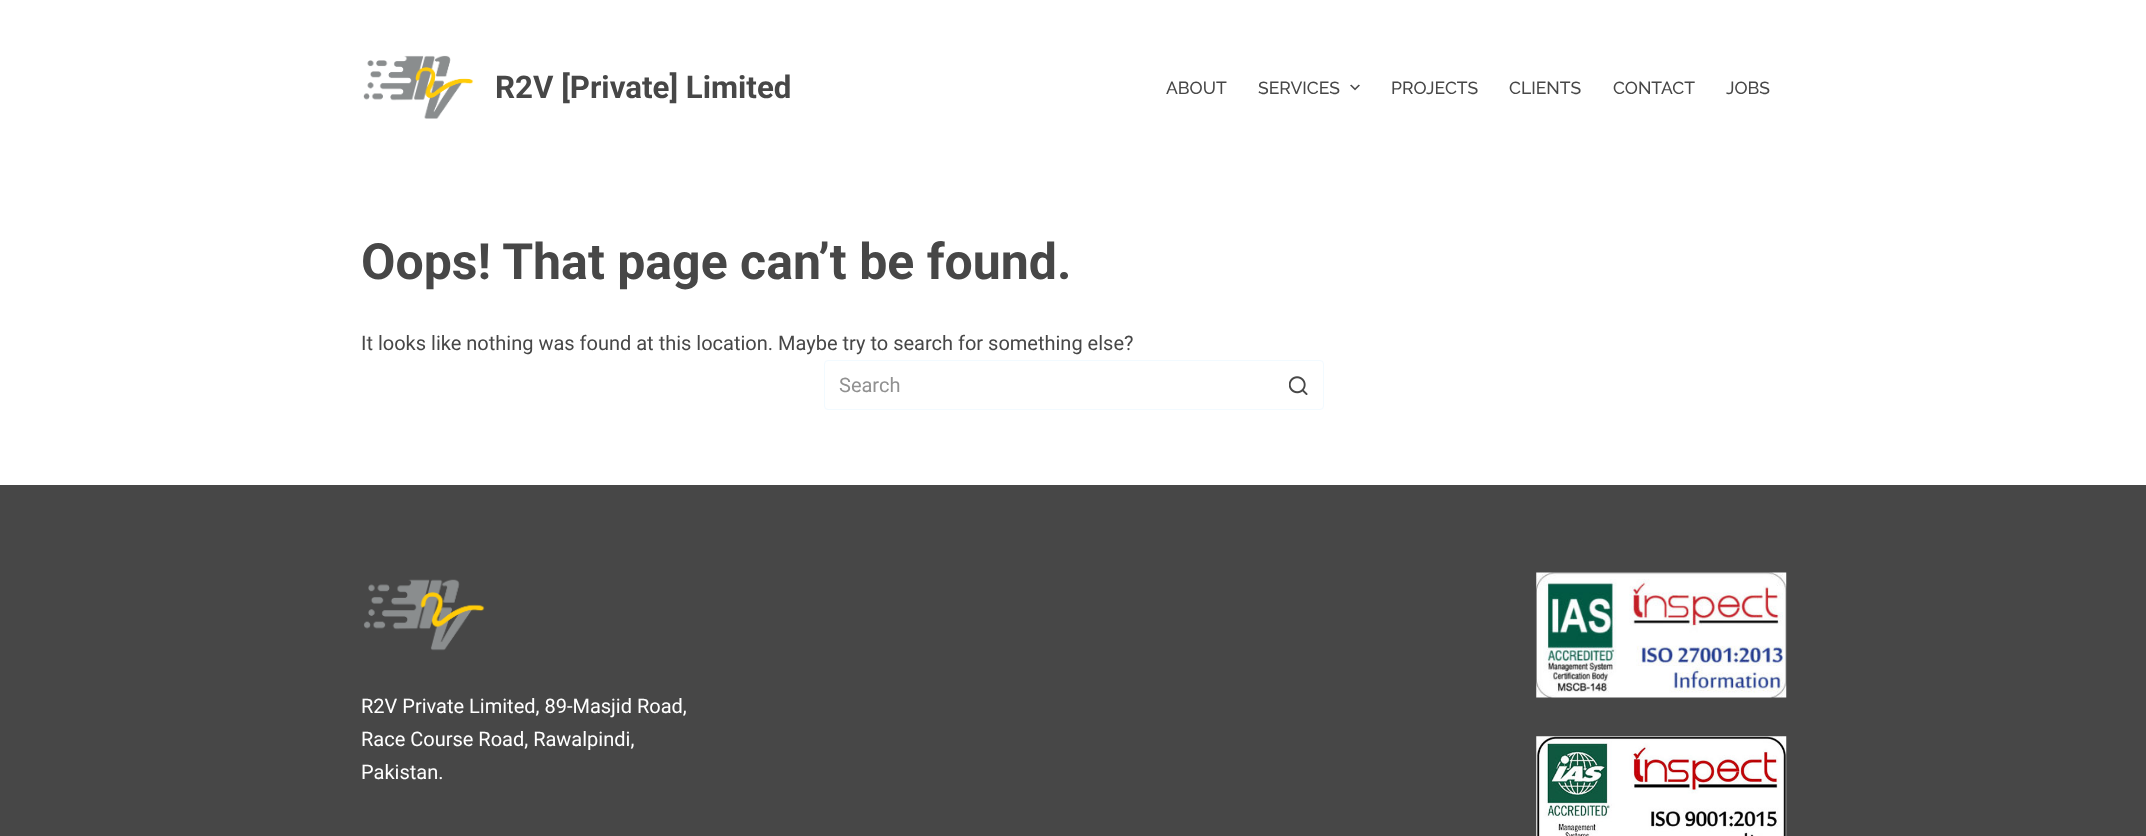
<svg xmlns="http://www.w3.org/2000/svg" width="2146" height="836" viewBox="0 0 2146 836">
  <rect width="100%" height="100%" fill="#ffffff"/>
  <image x="363" y="55" width="111" height="64" href="img1.png"/>
  <text x="495" y="98" font-family="Roboto" font-size="31.25" font-weight="bold" fill="#474747">R2V [Private] Limited</text>
  <text x="1166" y="94" font-family="Raleway" font-size="17.5" font-weight="500" fill="#474747">ABOUT</text>
  <text x="1258" y="94" font-family="Raleway" font-size="17.5" font-weight="500" fill="#474747">SERVICES</text>
  <image x="1350" y="84" width="10" height="7" href="img2.png"/>
  <text x="1391" y="94" font-family="Raleway" font-size="17.5" font-weight="500" fill="#474747">PROJECTS</text>
  <text x="1509" y="94" font-family="Raleway" font-size="17.5" font-weight="500" fill="#474747">CLIENTS</text>
  <text x="1613" y="94" font-family="Raleway" font-size="17.5" font-weight="500" fill="#474747">CONTACT</text>
  <text x="1726" y="94" font-family="Raleway" font-size="17.5" font-weight="500" fill="#474747">JOBS</text>
  <text x="361" y="279" font-family="Roboto" font-size="50" font-weight="bold" fill="#474747">Oops! That page can’t be found.</text>
  <text x="361" y="350" font-family="Roboto" font-size="20" fill="#474747">It looks like nothing was found at this location. Maybe try to search for something else?</text>
  <rect x="824.5" y="360.5" width="499" height="49" rx="3.5" fill="none" stroke="#f2faff"/>
  <text x="839" y="392" font-family="Roboto" font-size="20" fill="#919191">Search</text>
  <image x="1289" y="376" width="19" height="19" href="img3.png"/>
  <rect x="0" y="485" width="2146" height="351" fill="#474747"/>
  <image x="363" y="579" width="122" height="72" href="img4.png"/>
  <text x="361" y="713" font-family="Roboto" font-size="20" fill="#ffffff">R2V Private Limited, 89-Masjid Road,</text>
  <text x="361" y="746" font-family="Roboto" font-size="20" fill="#ffffff">Race Course Road, Rawalpindi,</text>
  <text x="361" y="779" font-family="Roboto" font-size="20" fill="#ffffff">Pakistan.</text>
  <image x="1536" y="572" width="251" height="126" href="img5.png"/>
  <image x="1536" y="736" width="251" height="100" href="img6.png"/>
</svg>
